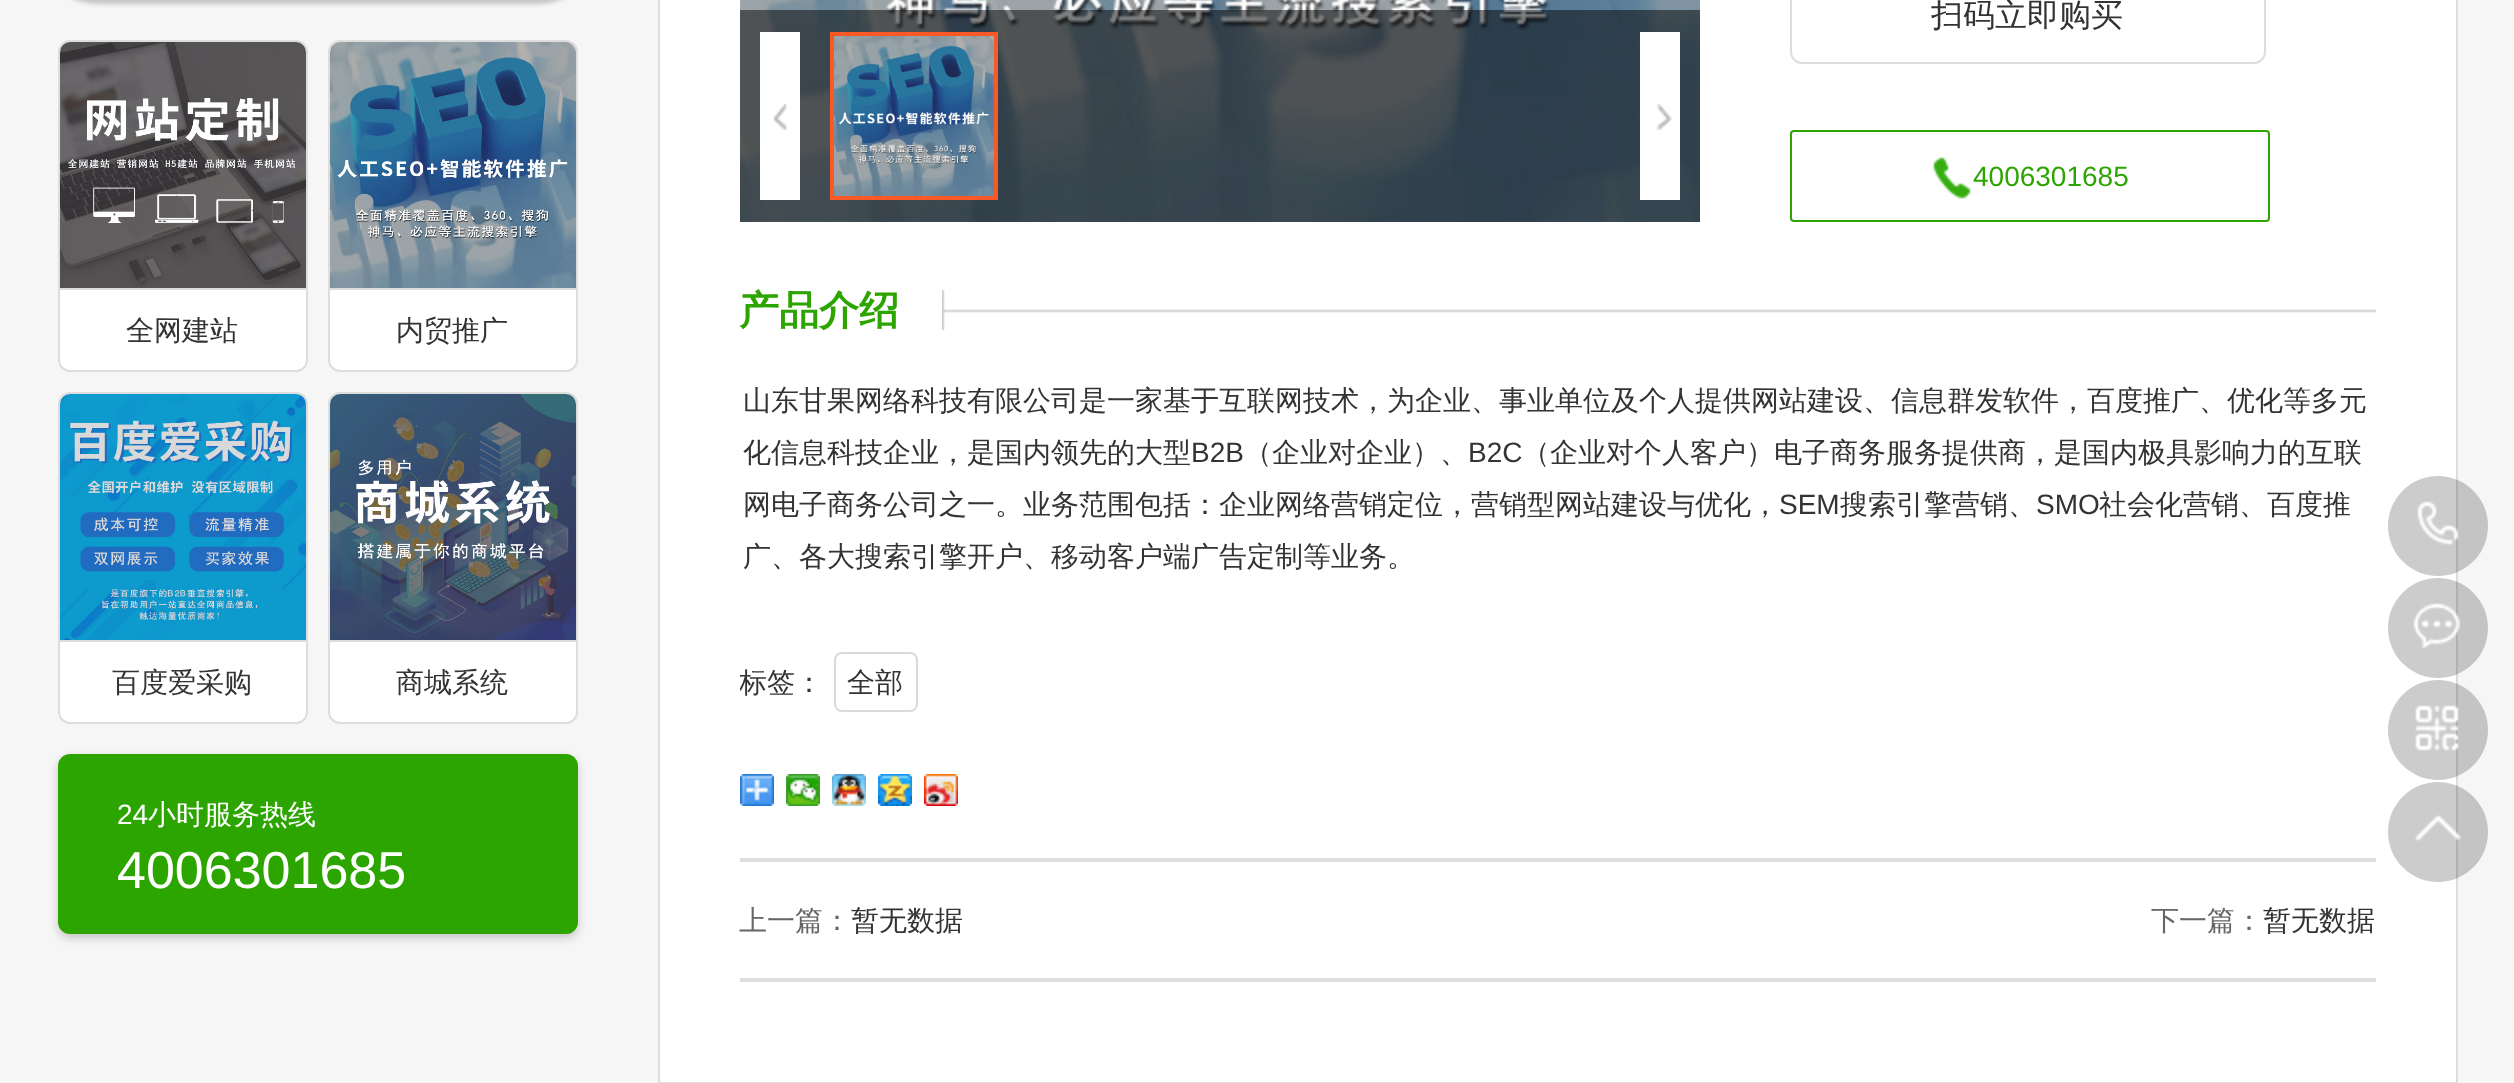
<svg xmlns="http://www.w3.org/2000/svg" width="2514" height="1083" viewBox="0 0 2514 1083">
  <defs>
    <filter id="blur1" x="-50%" y="-200%" width="200%" height="500%"><feGaussianBlur stdDeviation="2"/></filter>
    <filter id="blur2" x="-50%" y="-200%" width="200%" height="500%"><feGaussianBlur stdDeviation="5"/></filter>
    <clipPath id="clip1"><rect x="740" y="642" width="1636" height="80"/></clipPath>
  </defs>
  <rect width="100%" height="100%" fill="#f6f6f6"/>
  <rect x="58" y="-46" width="520" height="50" rx="40" fill="#000000" fill-opacity="0.2" filter="url(#blur1)"/>
  <rect x="59" y="41" width="248" height="330" rx="11" fill="#ffffff" stroke="#dddddd" stroke-width="2"/>
  <rect x="60" y="288" width="246" height="2" fill="#dddddd"/>
  <image x="60" y="42" width="246" height="246" href="img1.png"/>
  <text x="126" y="340" font-family="WenQuanYi Zen Hei" font-size="28" font-weight="500" fill="#333333">全网建站</text>
  <rect x="329" y="41" width="248" height="330" rx="11" fill="#ffffff" stroke="#dddddd" stroke-width="2"/>
  <rect x="330" y="288" width="246" height="2" fill="#dddddd"/>
  <image x="330" y="42" width="246" height="246" href="img2.png"/>
  <text x="396" y="340" font-family="WenQuanYi Zen Hei" font-size="28" font-weight="500" fill="#333333">内贸推广</text>
  <rect x="59" y="393" width="248" height="330" rx="11" fill="#ffffff" stroke="#dddddd" stroke-width="2"/>
  <rect x="60" y="640" width="246" height="2" fill="#dddddd"/>
  <image x="60" y="394" width="246" height="246" href="img3.png"/>
  <text x="112" y="692" font-family="WenQuanYi Zen Hei" font-size="28" font-weight="500" fill="#333333">百度爱采购</text>
  <rect x="329" y="393" width="248" height="330" rx="11" fill="#ffffff" stroke="#dddddd" stroke-width="2"/>
  <rect x="330" y="640" width="246" height="2" fill="#dddddd"/>
  <image x="330" y="394" width="246" height="246" href="img4.png"/>
  <text x="396" y="692" font-family="WenQuanYi Zen Hei" font-size="28" font-weight="500" fill="#333333">商城系统</text>
  <rect x="58" y="758" width="520" height="180" rx="12" fill="#000000" fill-opacity="0.2" filter="url(#blur2)"/>
  <rect x="58" y="754" width="520" height="180" rx="12" fill="#2ca501"/>
  <text x="117" y="824" font-family="Liberation Sans" font-size="28" fill="#ffffff">24</text>
  <text x="148" y="824" font-family="WenQuanYi Zen Hei" font-size="28" font-weight="500" fill="#ffffff">小时服务热线</text>
  <text x="117" y="888" font-family="Liberation Sans" font-size="52" fill="#ffffff">4006301685</text>
  <rect x="659" y="-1" width="1798" height="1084" fill="#ffffff" stroke="#dddddd" stroke-width="2"/>
  <image x="740" y="0" width="960" height="222" href="img5.png"/>
  <rect x="760" y="32" width="40" height="168" fill="#ffffff"/>
  <image x="774" y="104" width="13" height="26" href="img6.png"/>
  <rect x="832" y="34" width="164" height="164" fill="none" stroke="#f95927" stroke-width="4"/>
  <image x="834" y="36" width="160" height="160" href="img7.png"/>
  <rect x="1640" y="32" width="40" height="168" fill="#ffffff"/>
  <image x="1656" y="104" width="16" height="26" href="img8.png"/>
  <rect x="1791" y="-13" width="474" height="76" rx="11" fill="none" stroke="#dddddd" stroke-width="2"/>
  <text x="1931" y="26" font-family="WenQuanYi Zen Hei" font-size="32" font-weight="500" fill="#333333">扫码立即购买</text>
  <rect x="1791" y="131" width="478" height="90" rx="3" fill="none" stroke="#2ca501" stroke-width="2"/>
  <image x="1933" y="157" width="38" height="42" href="img9.png"/>
  <text x="1973" y="186" font-family="Liberation Sans" font-size="28" fill="#2ca501">4006301685</text>
  <image x="942" y="290" width="1434" height="40" href="img10.png"/>
  <text x="739" y="324" font-family="WenQuanYi Zen Hei" font-size="40" font-weight="bold" fill="#2ca501">产品介绍</text>
  <text x="743" y="410" font-family="WenQuanYi Zen Hei" font-size="28" font-weight="500" fill="#333333">山东甘果网络科技有限公司是一家基于互联网技术，为企业、事业单位及个人提供网站建设、信息群发软件，百度推广、优化等多元</text>
  <text x="743" y="462" font-family="WenQuanYi Zen Hei" font-size="28" font-weight="500" fill="#333333">化信息科技企业，是国内领先的大型</text>
  <text x="1191" y="462" font-family="Liberation Sans" font-size="28" fill="#333333">B2B</text>
  <text x="1244" y="462" font-family="WenQuanYi Zen Hei" font-size="28" font-weight="500" fill="#333333">（企业对企业）、</text>
  <text x="1468" y="462" font-family="Liberation Sans" font-size="28" fill="#333333">B2C</text>
  <text x="1522" y="462" font-family="WenQuanYi Zen Hei" font-size="28" font-weight="500" fill="#333333">（企业对个人客户）电子商务服务提供商，是国内极具影响力的互联</text>
  <text x="743" y="514" font-family="WenQuanYi Zen Hei" font-size="28" font-weight="500" fill="#333333">网电子商务公司之一。业务范围包括：企业网络营销定位，营销型网站建设与优化，</text>
  <text x="1779" y="514" font-family="Liberation Sans" font-size="28" fill="#333333">SEM</text>
  <text x="1840" y="514" font-family="WenQuanYi Zen Hei" font-size="28" font-weight="500" fill="#333333">搜索引擎营销、</text>
  <text x="2036" y="514" font-family="Liberation Sans" font-size="28" fill="#333333">SMO</text>
  <text x="2099" y="514" font-family="WenQuanYi Zen Hei" font-size="28" font-weight="500" fill="#333333">社会化营销、百度推</text>
  <text x="743" y="566" font-family="WenQuanYi Zen Hei" font-size="28" font-weight="500" fill="#333333">广、各大搜索引擎开户、移动客户端广告定制等业务。</text>
  <g clip-path="url(#clip1)">
    <text x="739" y="692" font-family="WenQuanYi Zen Hei" font-size="28" font-weight="500" fill="#333333">标签：</text>
  </g>
  <rect x="835" y="653" width="82" height="58" rx="7" fill="none" stroke="#dadada" stroke-width="2"/>
  <text x="847" y="692" font-family="WenQuanYi Zen Hei" font-size="28" font-weight="500" fill="#333333">全部</text>
  <image x="740" y="774" width="34" height="32" href="img11.png"/>
  <image x="786" y="774" width="34" height="32" href="img12.png"/>
  <image x="832" y="774" width="34" height="32" href="img13.png"/>
  <image x="878" y="774" width="34" height="32" href="img14.png"/>
  <image x="924" y="774" width="34" height="32" href="img15.png"/>
  <rect x="740" y="858" width="1636" height="4" fill="#dddddd"/>
  <rect x="740" y="978" width="1636" height="4" fill="#dddddd"/>
  <text x="739" y="930" font-family="WenQuanYi Zen Hei" font-size="28" font-weight="500" fill="#666666">上一篇：</text>
  <text x="851" y="930" font-family="WenQuanYi Zen Hei" font-size="28" font-weight="500" fill="#333333">暂无数据</text>
  <text x="2151" y="930" font-family="WenQuanYi Zen Hei" font-size="28" font-weight="500" fill="#666666">下一篇：</text>
  <text x="2263" y="930" font-family="WenQuanYi Zen Hei" font-size="28" font-weight="500" fill="#333333">暂无数据</text>
  <image x="2388" y="476" width="100" height="100" href="img16.png"/>
  <image x="2417" y="501" width="42" height="44" href="img17.png"/>
  <image x="2388" y="578" width="100" height="100" href="img16.png"/>
  <image x="2413" y="603" width="48" height="46" href="img18.png"/>
  <image x="2388" y="680" width="100" height="100" href="img16.png"/>
  <image x="2415" y="705" width="44" height="46" href="img19.png"/>
  <image x="2388" y="782" width="100" height="100" href="img16.png"/>
  <image x="2415" y="815" width="46" height="26" href="img20.png"/>
</svg>
